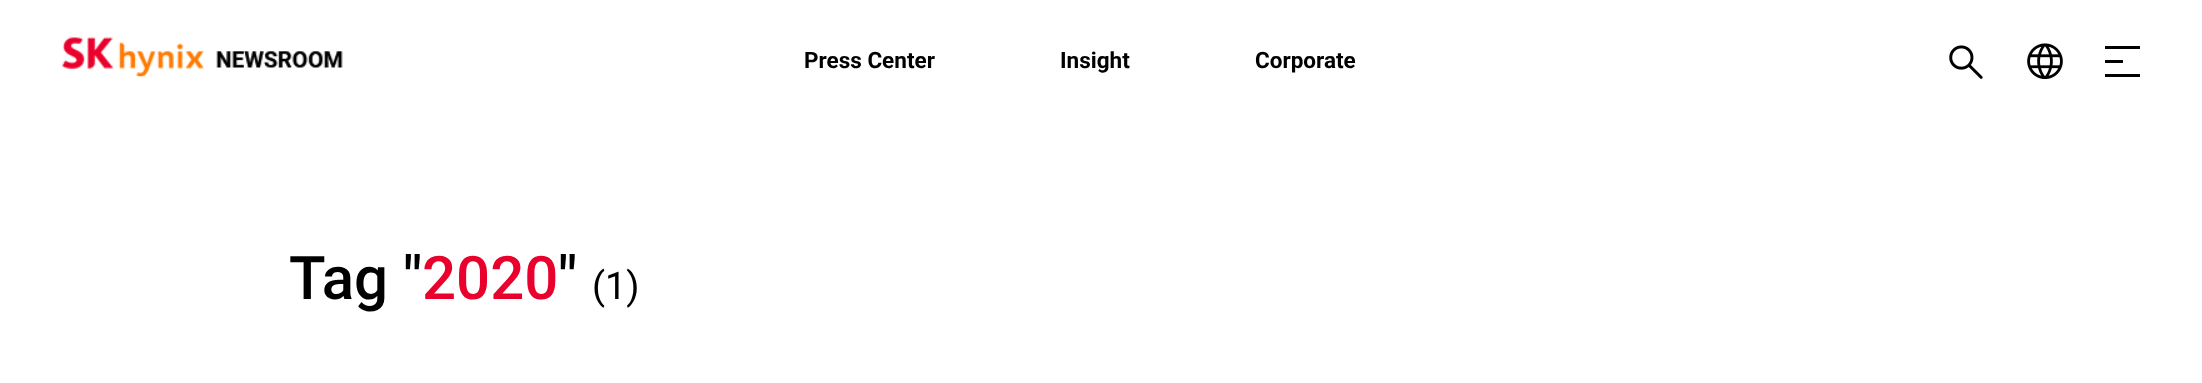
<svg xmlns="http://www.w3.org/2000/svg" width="2202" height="383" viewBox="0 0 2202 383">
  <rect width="100%" height="100%" fill="#ffffff"/>
  <image x="62" y="37" width="281" height="40" href="img1.png"/>
  <text x="804" y="68" font-family="Roboto" font-size="22.5" font-weight="bold" fill="#000000">Press Center</text>
  <text x="1060" y="68" font-family="Roboto" font-size="22.5" font-weight="bold" fill="#000000">Insight</text>
  <text x="1255" y="68" font-family="Roboto" font-size="22.5" font-weight="bold" fill="#000000">Corporate</text>
  <image x="1949" y="45" width="34" height="34" href="img2.png"/>
  <image x="2027" y="43" width="36" height="37" href="img3.png"/>
  <rect x="2105" y="46" width="35" height="3" fill="#000000"/>
  <rect x="2105" y="60" width="18" height="3" fill="#000000"/>
  <rect x="2105" y="74" width="35" height="3" fill="#000000"/>
  <text x="289" y="299" font-family="Roboto" font-size="60" font-weight="500" fill="#000000">Tag "</text>
  <text x="422" y="299" font-family="Roboto" font-size="60" font-weight="500" fill="#e9002d">2020</text>
  <text x="558" y="299" font-family="Roboto" font-size="60" font-weight="500" fill="#000000">"</text>
  <text x="592" y="299" font-family="Roboto" font-size="38" fill="#000000">(1)</text>
</svg>
